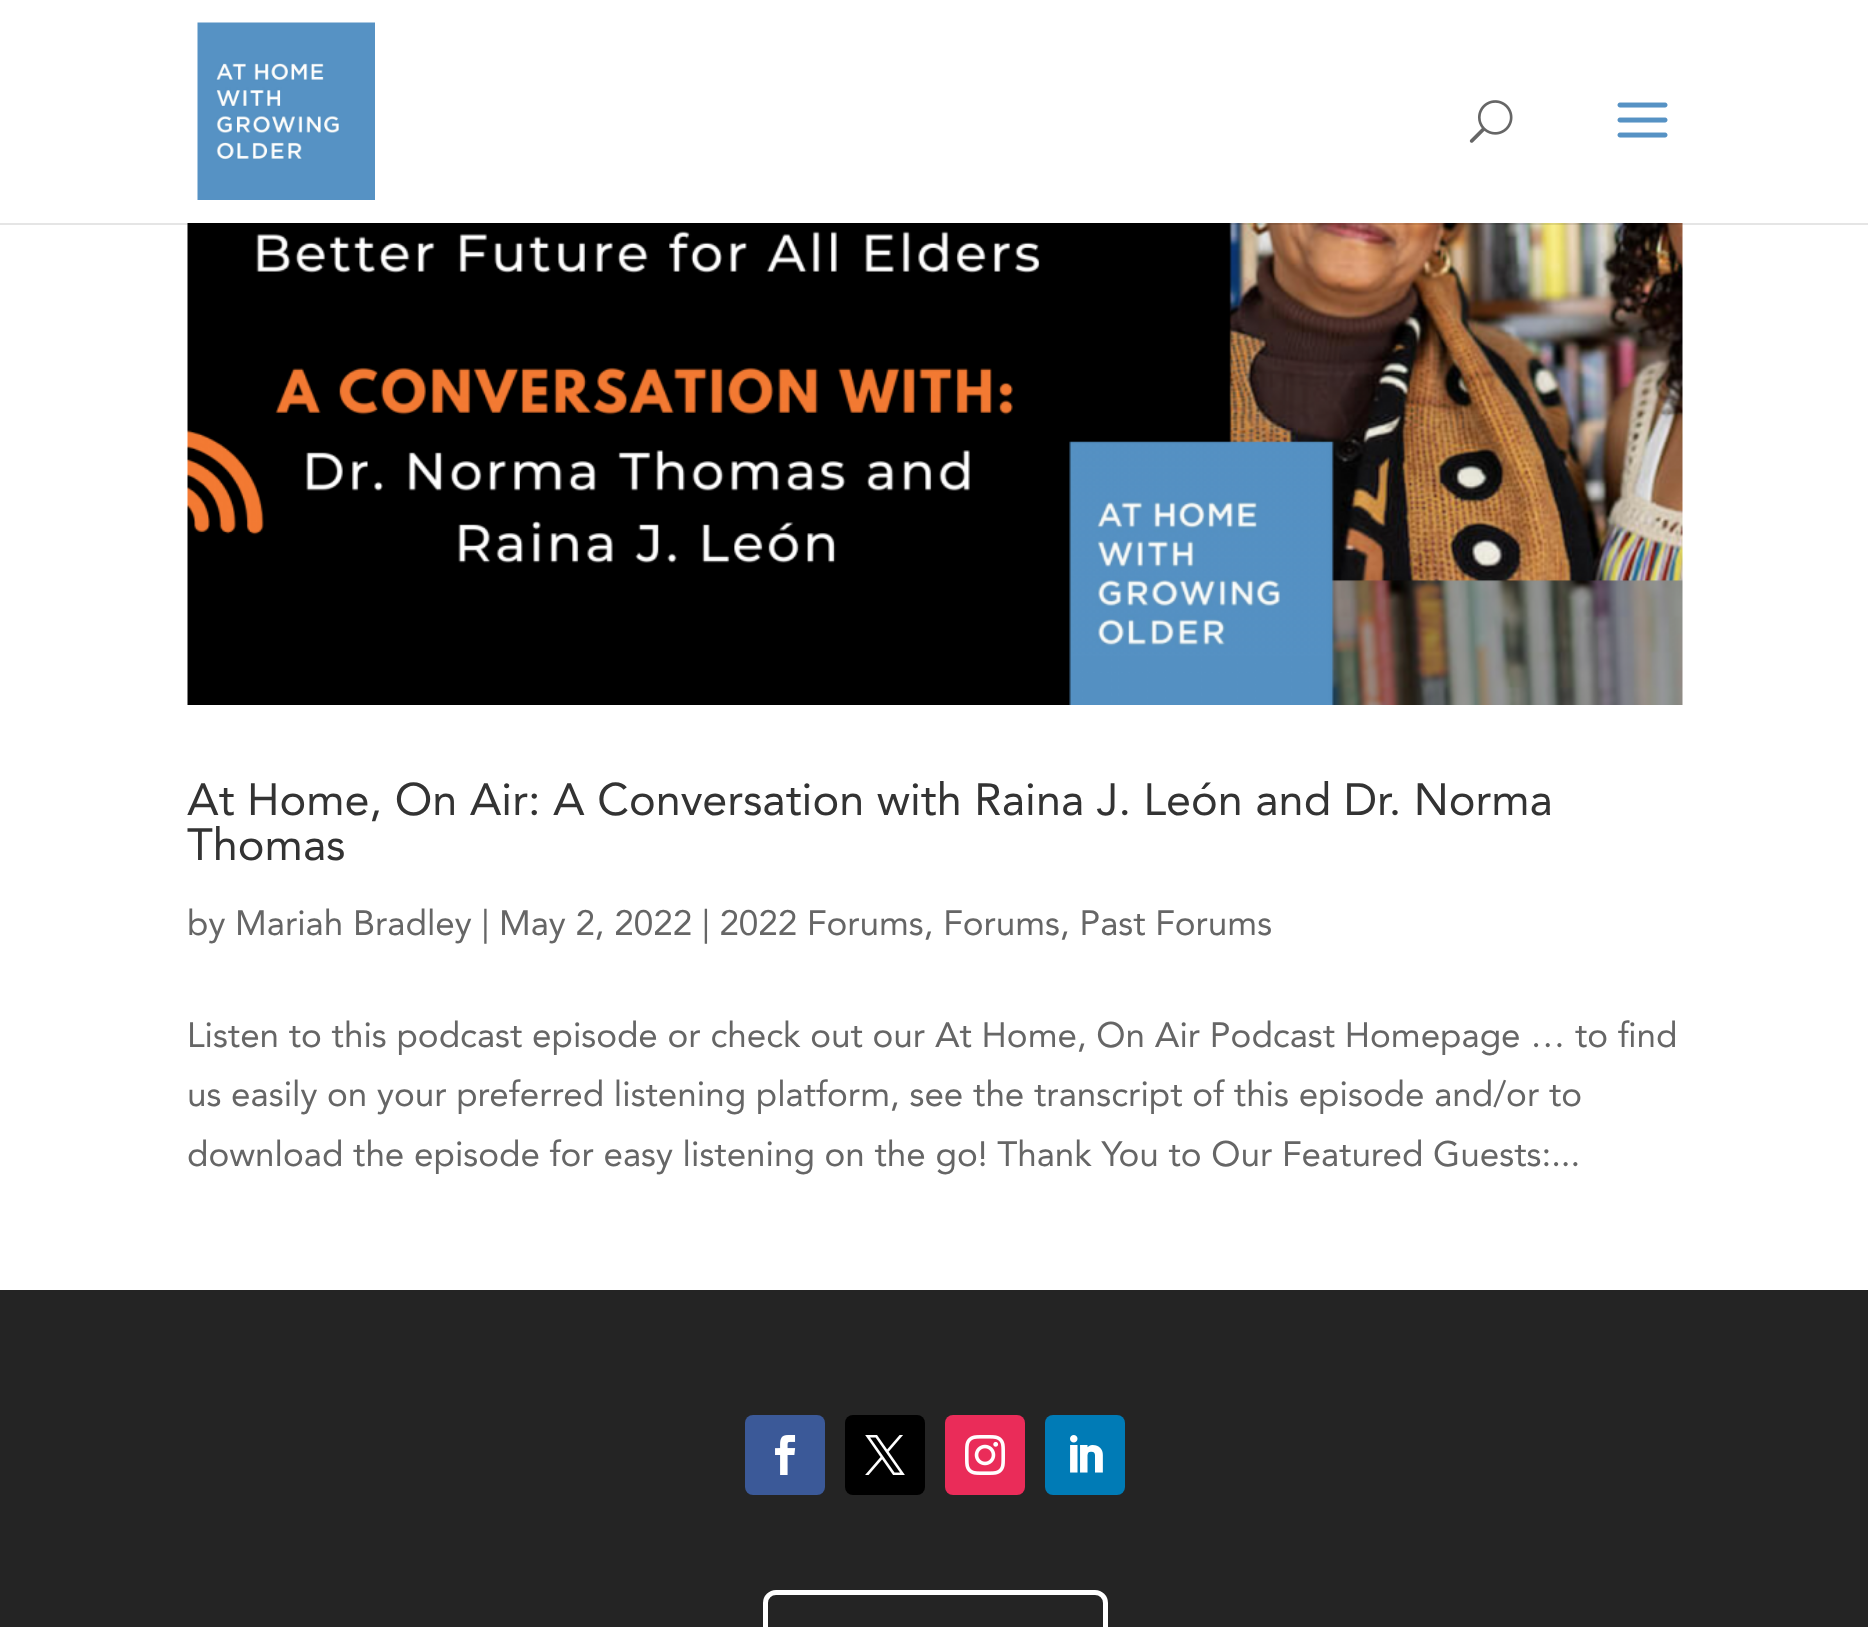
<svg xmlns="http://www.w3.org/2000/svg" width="1868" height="1627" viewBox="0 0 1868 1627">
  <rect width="100%" height="100%" fill="#ffffff"/>
  <image x="187" y="223" width="1496" height="482" href="img4.png"/>
  <rect x="0" y="223" width="1868" height="2" fill="#000000" fill-opacity="0.1"/>
  <image x="197" y="22" width="178" height="178" href="img1.png"/>
  <image x="1469" y="100" width="44" height="43" href="img2.png"/>
  <image x="1617" y="102" width="51" height="36" href="img3.png"/>
  <text x="187" y="815" font-family="Avenir" font-size="45" fill="#333333">At Home, On Air: A Conversation with Raina J. León and Dr. Norma</text>
  <text x="187" y="860" font-family="Avenir" font-size="45" fill="#333333">Thomas</text>
  <text x="187" y="935" font-family="Avenir" font-size="35" fill="#666666">by Mariah Bradley | May 2, 2022 | 2022 Forums, Forums, Past Forums</text>
  <text x="187" y="1047" font-family="Avenir" font-size="35" fill="#666666">Listen to this podcast episode or check out our At Home, On Air Podcast Homepage … to find</text>
  <text x="187" y="1106" font-family="Avenir" font-size="35" fill="#666666">us easily on your preferred listening platform, see the transcript of this episode and/or to</text>
  <text x="187" y="1166" font-family="Avenir" font-size="35" fill="#666666">download the episode for easy listening on the go! Thank You to Our Featured Guests:...</text>
  <rect x="0" y="1290" width="1868" height="337" fill="#242424"/>
  <rect x="745" y="1415" width="80" height="80" rx="8" fill="#3b5998"/>
  <image x="775" y="1435" width="21" height="40" href="img5.png"/>
  <rect x="845" y="1415" width="80" height="80" rx="8" fill="#000000"/>
  <image x="865" y="1435" width="40" height="40" href="img6.png"/>
  <rect x="945" y="1415" width="80" height="80" rx="8" fill="#ea2c59"/>
  <image x="965" y="1435" width="40" height="40" href="img7.png"/>
  <rect x="1045" y="1415" width="80" height="80" rx="8" fill="#007bb6"/>
  <image x="1070" y="1435" width="33" height="38" href="img8.png"/>
  <rect x="765.5" y="1592.5" width="340" height="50" rx="10.5" fill="none" stroke="#ffffff" stroke-width="5"/>
</svg>
